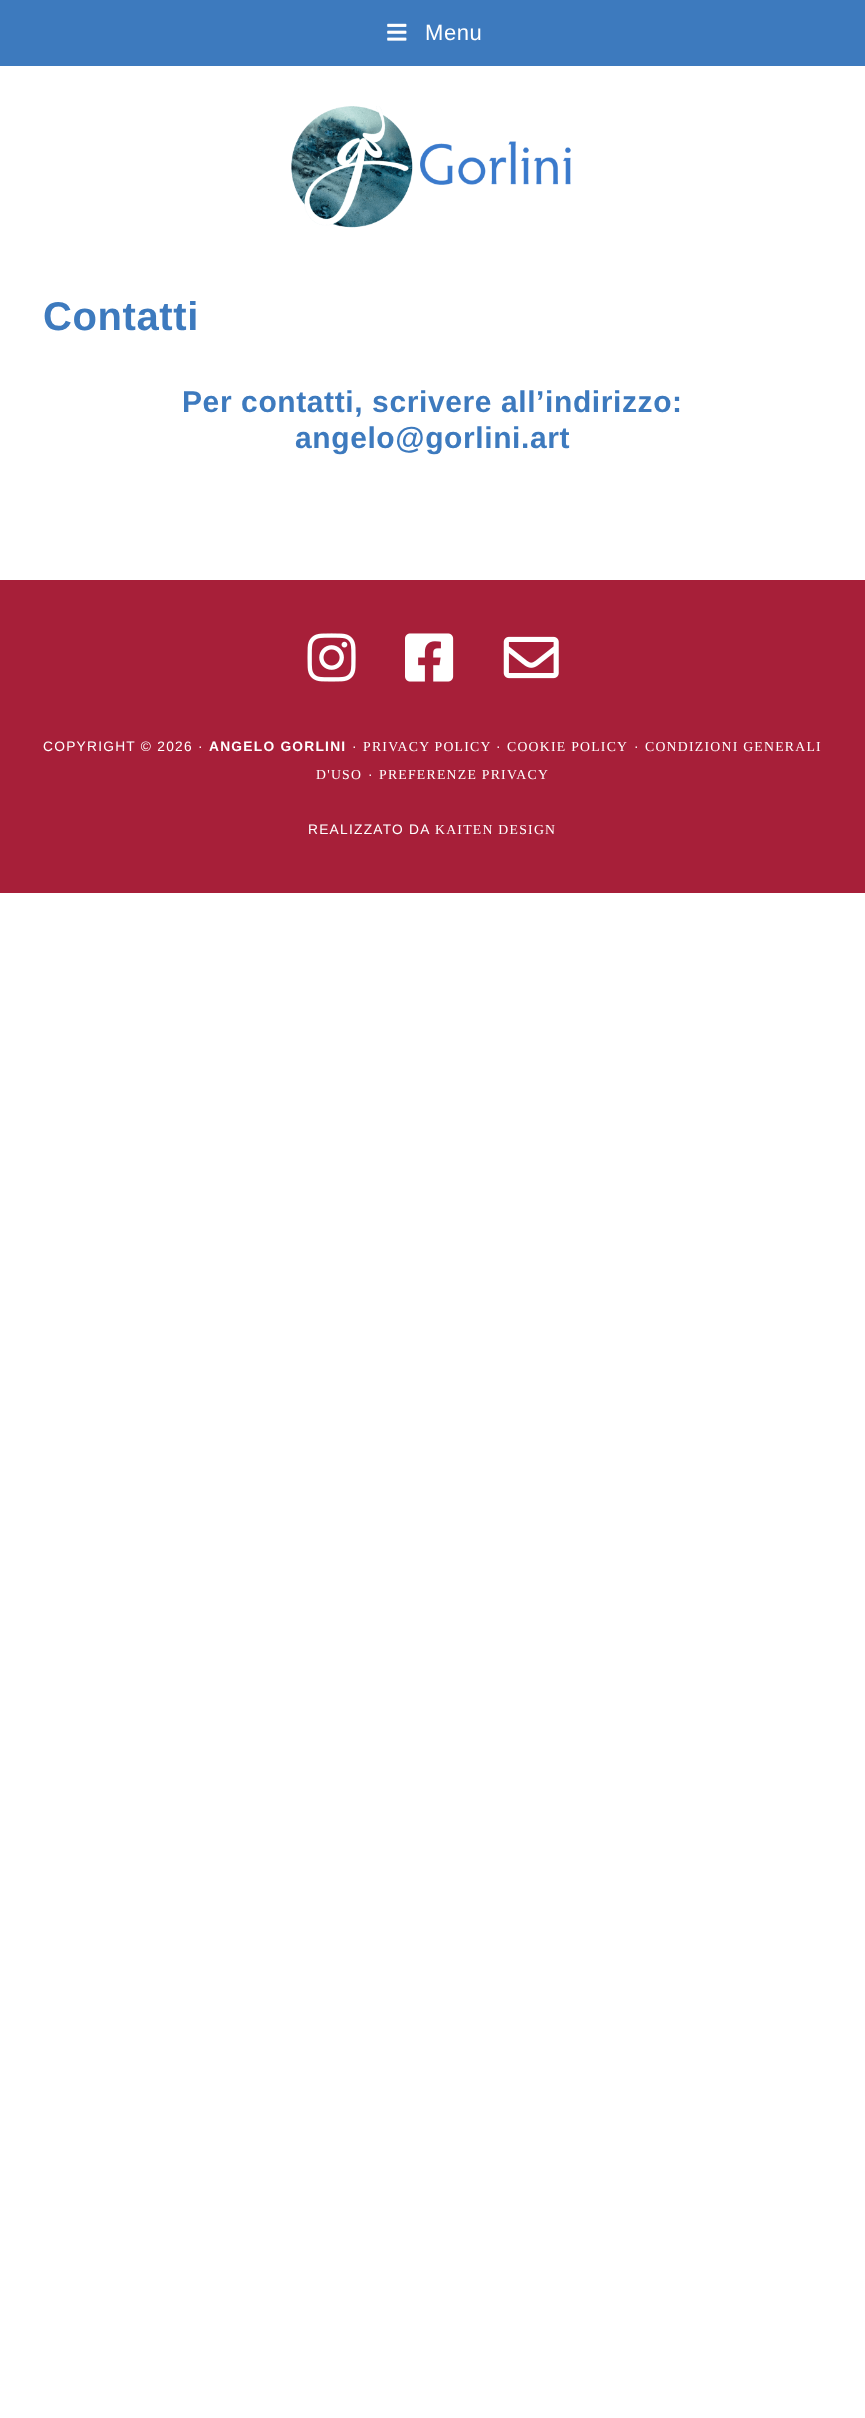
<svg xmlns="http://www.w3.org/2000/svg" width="865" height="2418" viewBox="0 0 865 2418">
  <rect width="100%" height="100%" fill="#ffffff"/>
  <rect x="0" y="0" width="865" height="66" fill="#3d7abe"/>
  <image x="387" y="23" width="20" height="18" href="img1.png"/>
  <text x="425" y="40" font-family="Liberation Sans" font-size="22" letter-spacing="0.6" fill="#ffffff">Menu</text>
  <image x="291" y="106" width="280" height="122" href="img2.png"/>
  <text x="43" y="330" font-family="Liberation Sans" font-size="40" font-weight="bold" letter-spacing="0.6" fill="#3d7abe">Contatti</text>
  <text x="182" y="412" font-family="Liberation Sans" font-size="30" font-weight="bold" letter-spacing="0.6" fill="#3d7abe">Per contatti, scrivere all’indirizzo:</text>
  <text x="295" y="448" font-family="Liberation Sans" font-size="30" font-weight="bold" letter-spacing="0.6" fill="#3d7abe">angelo@gorlini.art</text>
  <rect x="0" y="580" width="865" height="313" fill="#a71f39"/>
  <image x="307" y="633" width="49" height="49" href="img3.png"/>
  <image x="405" y="633" width="49" height="49" href="img4.png"/>
  <image x="503" y="636" width="56" height="43" href="img5.png"/>
  <text x="43" y="751" font-family="Liberation Sans" font-size="13.75" letter-spacing="1.25" fill="#ffffff">COPYRIGHT © 2026 ·</text>
  <text x="209" y="751" font-family="Liberation Sans" font-size="13.75" font-weight="bold" letter-spacing="1.25" fill="#ffffff">ANGELO GORLINI</text>
  <text x="352" y="751" font-family="Liberation Sans" font-size="13.75" letter-spacing="1.25" fill="#ffffff">·</text>
  <text x="363" y="751" font-family="Liberation Serif" font-size="13.75" letter-spacing="1.25" fill="#ffffff">PRIVACY POLICY</text>
  <text x="496" y="751" font-family="Liberation Sans" font-size="13.75" letter-spacing="1.25" fill="#ffffff">·</text>
  <text x="507" y="751" font-family="Liberation Serif" font-size="13.75" letter-spacing="1.25" fill="#ffffff">COOKIE POLICY</text>
  <text x="634" y="751" font-family="Liberation Sans" font-size="13.75" letter-spacing="1.25" fill="#ffffff">·</text>
  <text x="645" y="751" font-family="Liberation Serif" font-size="13.75" letter-spacing="1.25" fill="#ffffff">CONDIZIONI GENERALI</text>
  <text x="316" y="779" font-family="Liberation Serif" font-size="13.75" letter-spacing="1.25" fill="#ffffff">D'USO</text>
  <text x="368" y="779" font-family="Liberation Sans" font-size="13.75" letter-spacing="1.25" fill="#ffffff">·</text>
  <text x="379" y="779" font-family="Liberation Serif" font-size="13.75" letter-spacing="1.25" fill="#ffffff">PREFERENZE PRIVACY</text>
  <text x="308" y="834" font-family="Liberation Sans" font-size="13.75" letter-spacing="1.25" fill="#ffffff">REALIZZATO DA</text>
  <text x="435" y="834" font-family="Liberation Serif" font-size="13.75" letter-spacing="1.25" fill="#ffffff">KAITEN DESIGN</text>
</svg>
